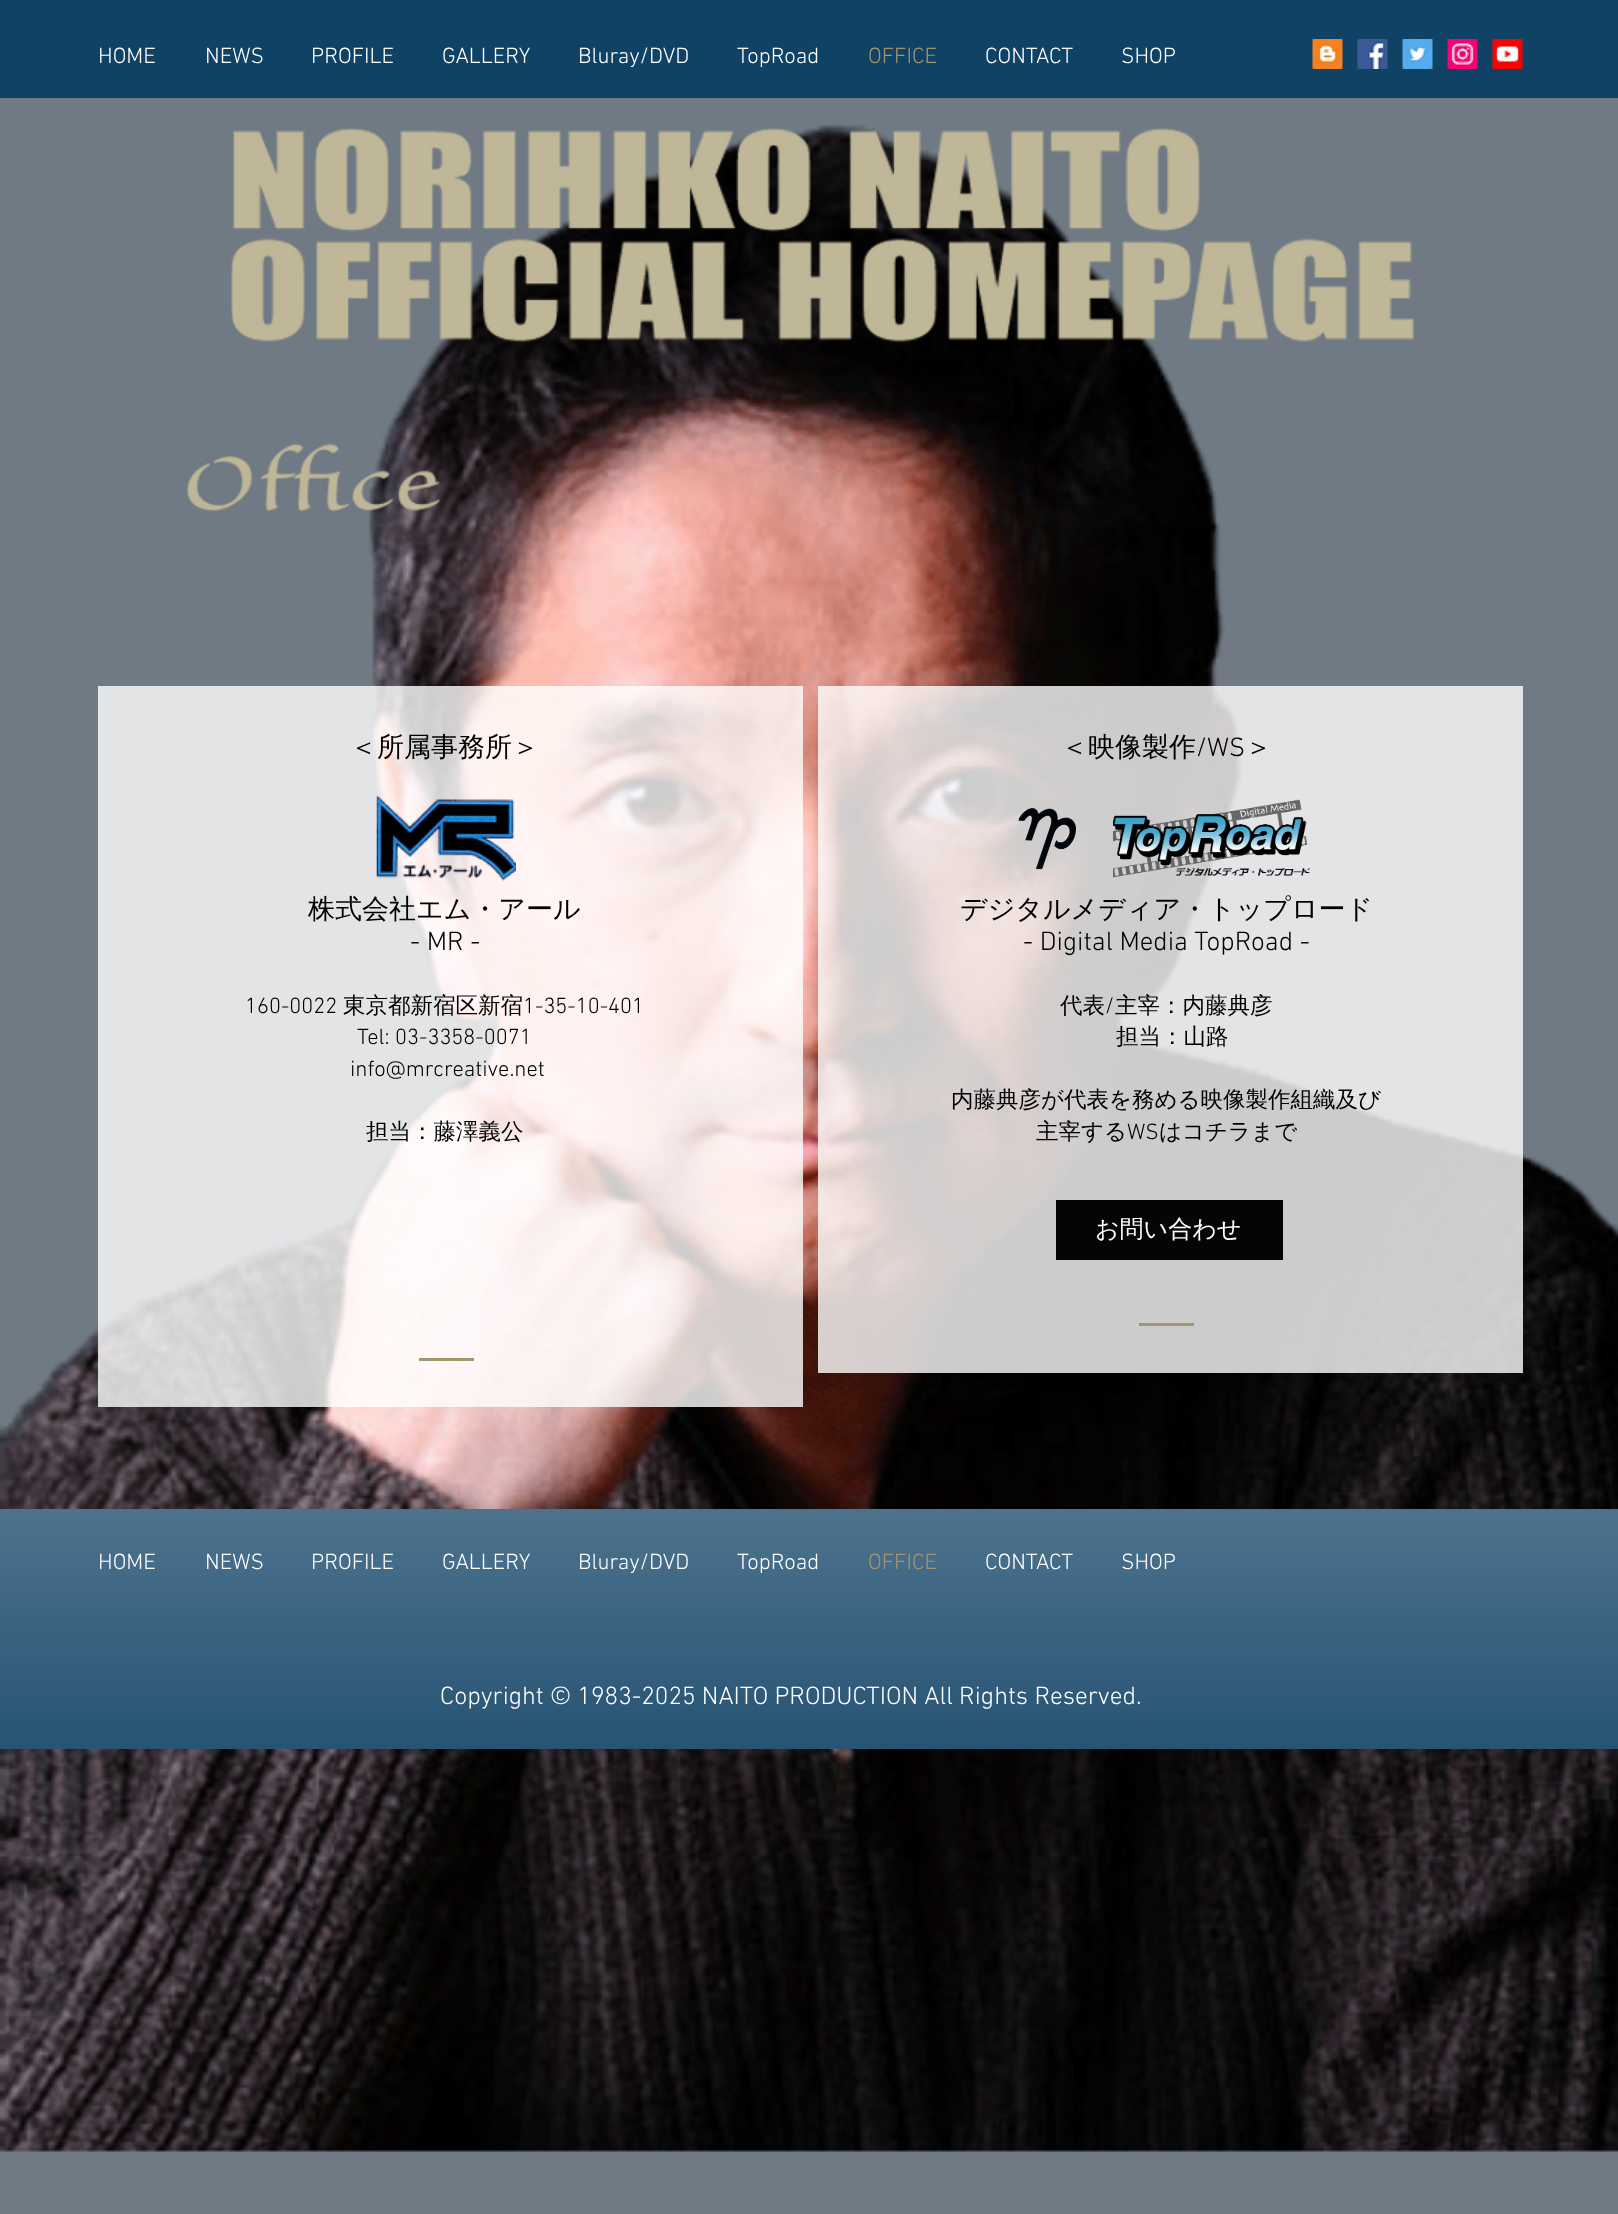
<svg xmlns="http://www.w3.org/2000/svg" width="1618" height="2214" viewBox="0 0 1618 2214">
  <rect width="100%" height="100%" fill="#707a84"/>
  <rect x="0" y="0" width="1618" height="98" fill="#104266"/>
  <text x="98" y="63" font-family="'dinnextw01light'" font-size="22.5" font-weight="300" fill="#ffffff">HOME</text>
  <text x="205" y="63" font-family="'dinnextw01light'" font-size="22.5" font-weight="300" fill="#ffffff">NEWS</text>
  <text x="311" y="63" font-family="'dinnextw01light'" font-size="22.5" font-weight="300" fill="#ffffff">PROFILE</text>
  <text x="442" y="63" font-family="'dinnextw01light'" font-size="22.5" font-weight="300" fill="#ffffff">GALLERY</text>
  <text x="578" y="63" font-family="'dinnextw01light'" font-size="22.5" font-weight="300" fill="#ffffff">Bluray/DVD</text>
  <text x="737" y="63" font-family="'dinnextw01light'" font-size="22.5" font-weight="300" fill="#ffffff">TopRoad</text>
  <text x="868" y="63" font-family="'dinnextw01light'" font-size="22.5" font-weight="300" fill="#a3956d">OFFICE</text>
  <text x="985" y="63" font-family="'dinnextw01light'" font-size="22.5" font-weight="300" fill="#ffffff">CONTACT</text>
  <text x="1121" y="63" font-family="'dinnextw01light'" font-size="22.5" font-weight="300" fill="#ffffff">SHOP</text>
  <image x="1312" y="39" width="31" height="30" href="img1.png"/>
  <image x="1357" y="39" width="31" height="30" href="img2.png"/>
  <image x="1402" y="39" width="31" height="30" href="img3.png"/>
  <image x="1447" y="39" width="31" height="30" href="img4.png"/>
  <image x="1492" y="39" width="31" height="30" href="img5.png"/>
  <image x="0" y="124" width="1618" height="2028" href="img12.png"/>
  <image x="230" y="127" width="1185" height="216" href="img6.png"/>
  <image x="186" y="443" width="255" height="69" href="img7.png"/>
  <rect x="98" y="686" width="705" height="721" fill="#ffffff" fill-opacity="0.8"/>
  <text x="350" y="756" font-family="WenQuanYi Zen Hei" font-size="27" font-weight="500" fill="#000000">＜所属事務所＞</text>
  <text x="308" y="918" font-family="WenQuanYi Zen Hei" font-size="27" font-weight="500" fill="#000000">株式会社エム・アール</text>
  <text x="410" y="950" font-family="'dinnextw01light'" font-size="27" font-weight="300" fill="#000000">- MR -</text>
  <text x="245" y="1013" font-family="'dinnextw01light'" font-size="22.5" font-weight="300" fill="#000000">160-0022</text>
  <text x="343" y="1013" font-family="WenQuanYi Zen Hei" font-size="22.5" font-weight="500" fill="#000000">東京都新宿区新宿</text>
  <text x="523" y="1013" font-family="'dinnextw01light'" font-size="22.5" font-weight="300" fill="#000000">1-35-10-401</text>
  <text x="357" y="1044" font-family="'dinnextw01light'" font-size="22.5" font-weight="300" fill="#000000">Tel: 03-3358-0071</text>
  <text x="350" y="1076" font-family="'dinnextw01light'" font-size="22.5" font-weight="300" fill="#000000">info@mrcreative.net</text>
  <text x="366" y="1139" font-family="WenQuanYi Zen Hei" font-size="22.5" font-weight="500" fill="#000000">担当：藤澤義公</text>
  <image x="376" y="796" width="140" height="85" href="img8.png"/>
  <rect x="419" y="1358" width="55" height="3" fill="#a3956d"/>
  <rect x="818" y="686" width="705" height="687" fill="#ffffff" fill-opacity="0.8"/>
  <text x="1061" y="756" font-family="WenQuanYi Zen Hei" font-size="27" font-weight="500" fill="#000000">＜映像製作</text>
  <text x="1196" y="756" font-family="'dinnextw01light'" font-size="27" font-weight="300" fill="#000000">/WS</text>
  <text x="1245" y="756" font-family="WenQuanYi Zen Hei" font-size="27" font-weight="500" fill="#000000">＞</text>
  <text x="960" y="918" font-family="WenQuanYi Zen Hei" font-size="27" font-weight="500" fill="#000000">デジタルメディア・トップロード</text>
  <text x="1023" y="950" font-family="'dinnextw01light'" font-size="27" font-weight="300" fill="#000000">- Digital Media TopRoad -</text>
  <text x="1060" y="1013" font-family="WenQuanYi Zen Hei" font-size="22.5" font-weight="500" fill="#000000">代表</text>
  <text x="1105" y="1013" font-family="'dinnextw01light'" font-size="22.5" font-weight="300" fill="#000000">/</text>
  <text x="1115" y="1013" font-family="WenQuanYi Zen Hei" font-size="22.5" font-weight="500" fill="#000000">主宰：内藤典彦</text>
  <text x="1116" y="1044" font-family="WenQuanYi Zen Hei" font-size="22.5" font-weight="500" fill="#000000">担当：山路</text>
  <text x="951" y="1107" font-family="WenQuanYi Zen Hei" font-size="22.5" font-weight="500" fill="#000000">内藤典彦が代表を務める映像製作組織及び</text>
  <text x="1036" y="1139" font-family="WenQuanYi Zen Hei" font-size="22.5" font-weight="500" fill="#000000">主宰する</text>
  <text x="1127" y="1139" font-family="'dinnextw01light'" font-size="22.5" font-weight="300" fill="#000000">WS</text>
  <text x="1159" y="1139" font-family="WenQuanYi Zen Hei" font-size="22.5" font-weight="500" fill="#000000">はコチラまで</text>
  <image x="1018" y="808" width="59" height="62" href="img9.png"/>
  <image x="1113" y="799" width="197" height="79" href="img10.png"/>
  <rect x="1056" y="1200" width="227" height="60" fill="#050505"/>
  <text x="1095" y="1237" font-family="WenQuanYi Zen Hei" font-size="24" font-weight="500" fill="#ffffff">お問い合わせ</text>
  <rect x="1139" y="1323" width="55" height="3" fill="#a3956d"/>
  <rect x="0" y="1509" width="1618" height="240" fill="#104266"/>
  <image x="0" y="1509" width="1618" height="240" href="img11.png"/>
  <text x="98" y="1569" font-family="'dinnextw01light'" font-size="22.5" font-weight="300" fill="#ffffff">HOME</text>
  <text x="205" y="1569" font-family="'dinnextw01light'" font-size="22.5" font-weight="300" fill="#ffffff">NEWS</text>
  <text x="311" y="1569" font-family="'dinnextw01light'" font-size="22.5" font-weight="300" fill="#ffffff">PROFILE</text>
  <text x="442" y="1569" font-family="'dinnextw01light'" font-size="22.5" font-weight="300" fill="#ffffff">GALLERY</text>
  <text x="578" y="1569" font-family="'dinnextw01light'" font-size="22.5" font-weight="300" fill="#ffffff">Bluray/DVD</text>
  <text x="737" y="1569" font-family="'dinnextw01light'" font-size="22.5" font-weight="300" fill="#ffffff">TopRoad</text>
  <text x="868" y="1569" font-family="'dinnextw01light'" font-size="22.5" font-weight="300" fill="#a3956d">OFFICE</text>
  <text x="985" y="1569" font-family="'dinnextw01light'" font-size="22.5" font-weight="300" fill="#ffffff">CONTACT</text>
  <text x="1121" y="1569" font-family="'dinnextw01light'" font-size="22.5" font-weight="300" fill="#ffffff">SHOP</text>
  <text x="440" y="1704" font-family="'dinnextw01light'" font-size="25.5" font-weight="300" fill="#ffffff">Copyright © 1983-2025 NAITO PRODUCTION All Rights Reserved.</text>
</svg>
